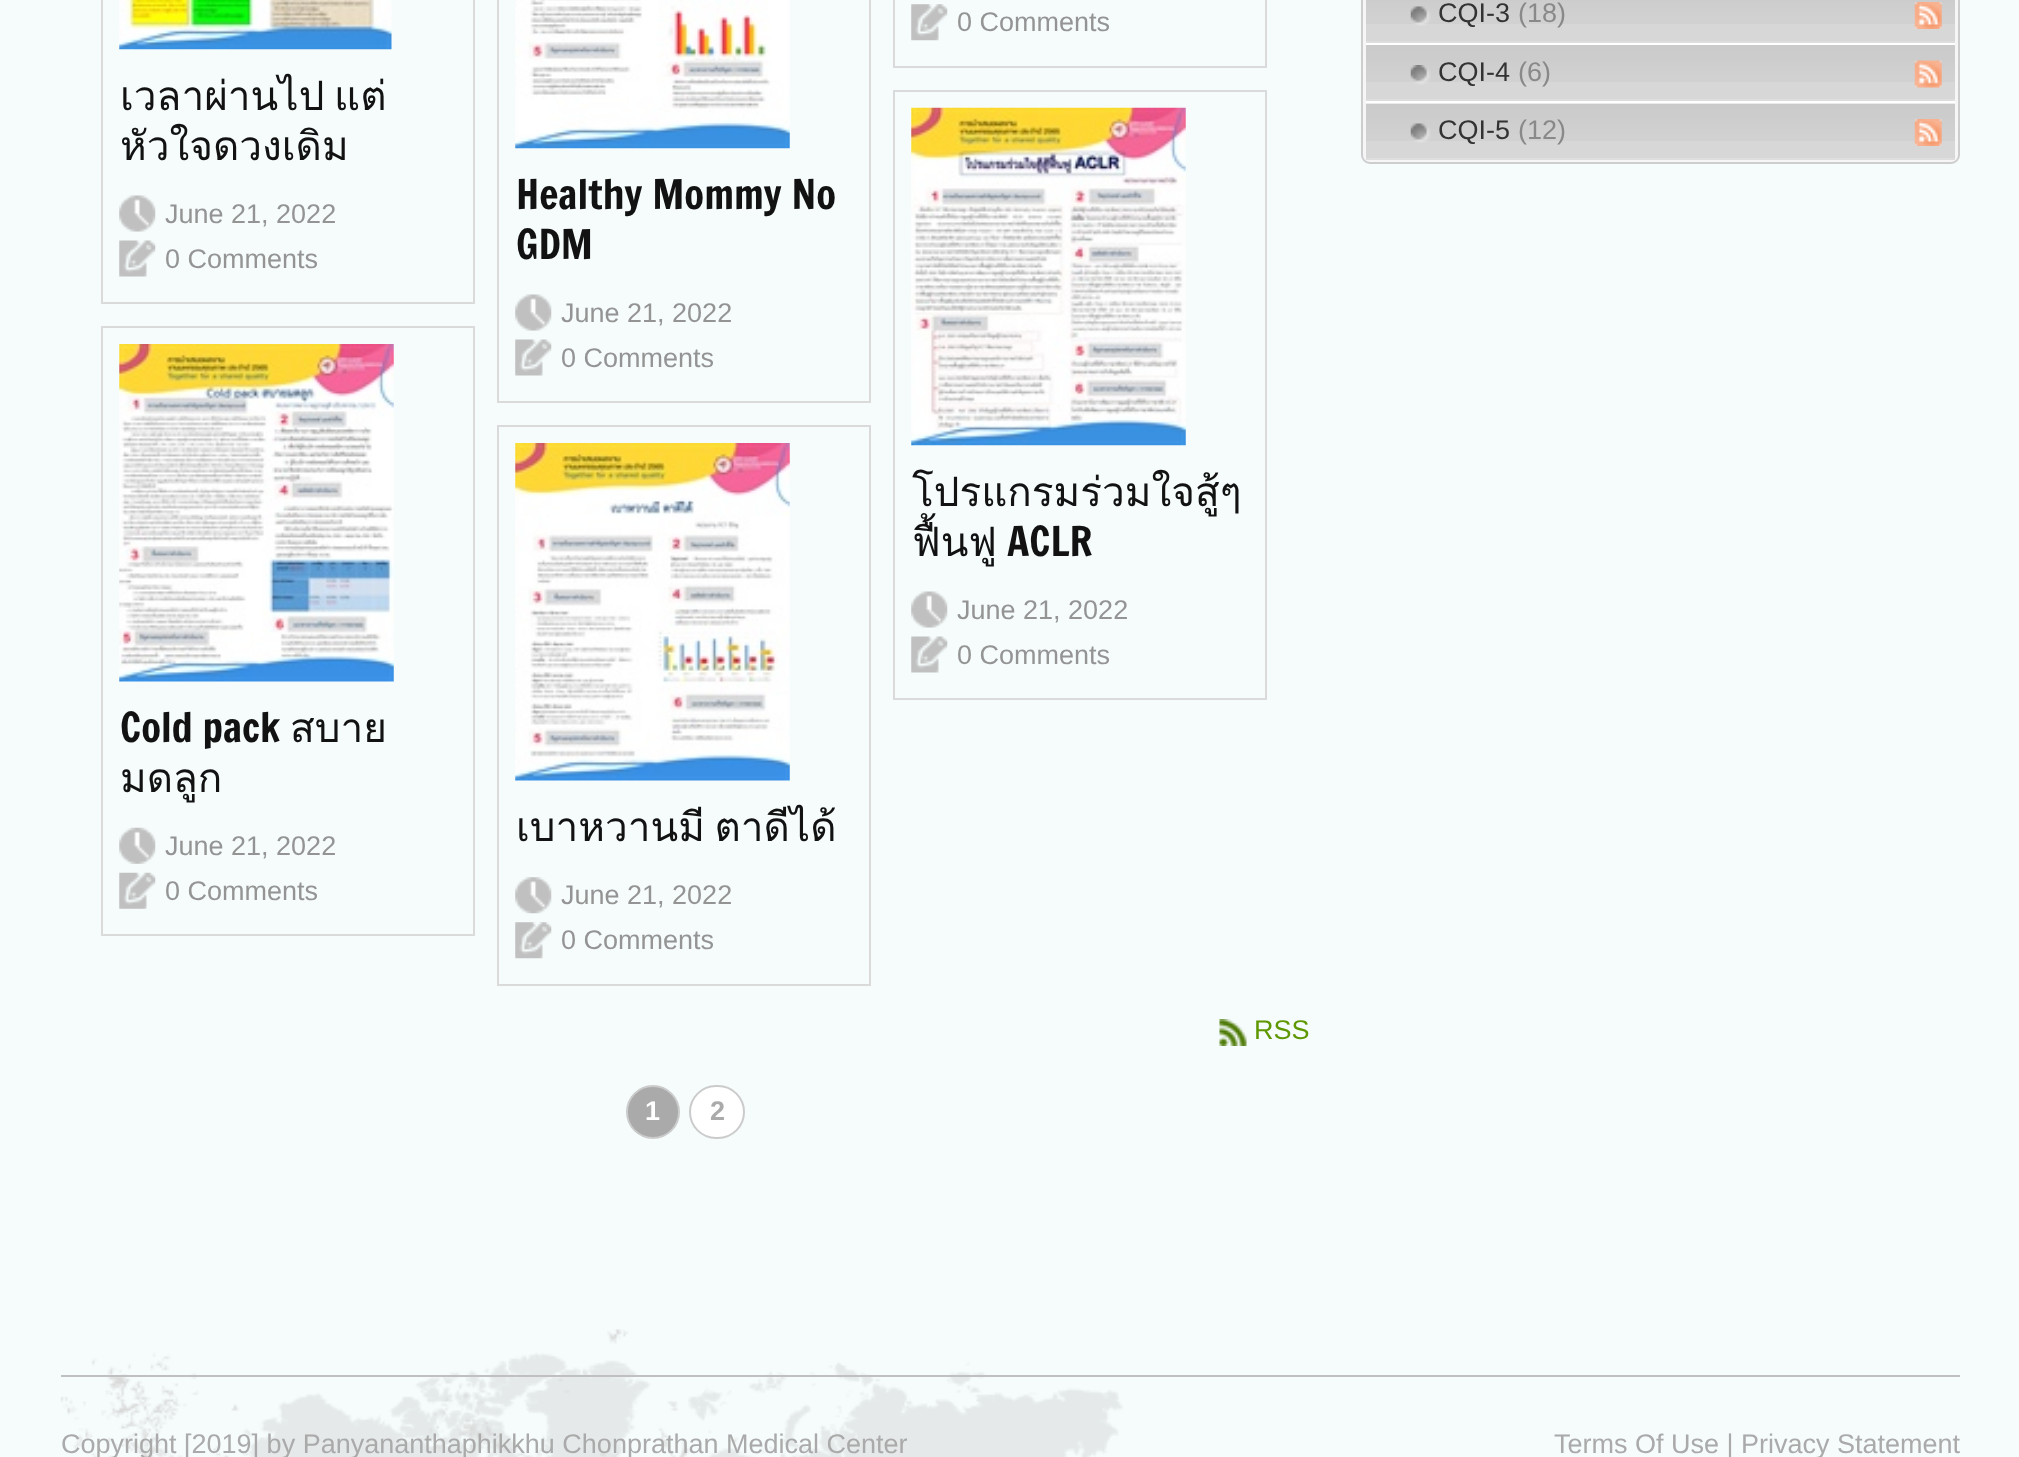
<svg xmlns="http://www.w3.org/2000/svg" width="2019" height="1457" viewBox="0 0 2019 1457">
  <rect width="100%" height="100%" fill="#f6fcfc"/>
  <rect x="894" y="-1" width="372" height="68" fill="none" stroke="#dadada" stroke-width="2"/>
  <image x="911" y="4" width="37" height="37" href="img1.png"/>
  <text x="957" y="31" font-family="Liberation Sans" font-size="27" fill="#949494">0 Comments</text>
  <rect x="102" y="-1" width="372" height="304" fill="none" stroke="#dadada" stroke-width="2"/>
  <image x="119" y="0" width="273" height="50" href="img2.png"/>
  <text x="120" y="110" word-spacing="-4" font-family="Loma" font-size="40.5" fill="#121212">เวลาผ่านไป แต่</text>
  <text x="120" y="160" font-family="Loma" font-size="40.5" fill="#121212">หัวใจดวงเดิม</text>
  <image x="119" y="195" width="37" height="37" href="img3.png"/>
  <text x="165" y="223" font-family="Liberation Sans" font-size="27" fill="#949494">June 21, 2022</text>
  <image x="119" y="240" width="37" height="37" href="img4.png"/>
  <text x="165" y="268" font-family="Liberation Sans" font-size="27" fill="#949494">0 Comments</text>
  <rect x="498" y="-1" width="372" height="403" fill="none" stroke="#dadada" stroke-width="2"/>
  <image x="515" y="0" width="275" height="149" href="img5.png"/>
  <text x="516" y="209" font-family="Francois One" font-size="40.5" fill="#121212">Healthy Mommy No</text>
  <text x="516" y="259" font-family="Francois One" font-size="40.5" fill="#121212">GDM</text>
  <image x="515" y="294" width="37" height="37" href="img3.png"/>
  <text x="561" y="322" font-family="Liberation Sans" font-size="27" fill="#949494">June 21, 2022</text>
  <image x="515" y="339" width="37" height="37" href="img4.png"/>
  <text x="561" y="367" font-family="Liberation Sans" font-size="27" fill="#949494">0 Comments</text>
  <rect x="894" y="91" width="372" height="608" fill="none" stroke="#dadada" stroke-width="2"/>
  <image x="911" y="107" width="275" height="339" href="img6.png"/>
  <text x="912" y="506" font-family="Loma" font-size="40.5" fill="#121212">โปรแกรมร่วมใจสู้ๆ</text>
  <text x="912" y="556" font-family="Loma" font-size="40.5" fill="#121212">ฟื้นฟู</text>
  <text x="1007" y="556" font-family="Francois One" font-size="40.5" fill="#121212">ACLR</text>
  <image x="911" y="591" width="37" height="37" href="img3.png"/>
  <text x="957" y="619" font-family="Liberation Sans" font-size="27" fill="#949494">June 21, 2022</text>
  <image x="911" y="636" width="37" height="37" href="img4.png"/>
  <text x="957" y="664" font-family="Liberation Sans" font-size="27" fill="#949494">0 Comments</text>
  <rect x="102" y="327" width="372" height="608" fill="none" stroke="#dadada" stroke-width="2"/>
  <image x="119" y="344" width="275" height="338" href="img7.png"/>
  <text x="120" y="742" font-family="Francois One" font-size="40.5" fill="#121212">Cold pack</text>
  <text x="290" y="742" font-family="Loma" font-size="40.5" fill="#121212">สบาย</text>
  <text x="120" y="792" font-family="Loma" font-size="40.5" fill="#121212">มดลูก</text>
  <image x="119" y="827" width="37" height="37" href="img8.png"/>
  <text x="165" y="855" font-family="Liberation Sans" font-size="27" fill="#949494">June 21, 2022</text>
  <image x="119" y="872" width="37" height="37" href="img9.png"/>
  <text x="165" y="900" font-family="Liberation Sans" font-size="27" fill="#949494">0 Comments</text>
  <rect x="498" y="426" width="372" height="559" fill="none" stroke="#dadada" stroke-width="2"/>
  <image x="515" y="443" width="275" height="338" href="img10.png"/>
  <text x="516" y="841" word-spacing="-4" font-family="Loma" font-size="40.5" fill="#121212">เบาหวานมี ตาดีได้</text>
  <image x="515" y="877" width="37" height="37" href="img11.png"/>
  <text x="561" y="904" font-family="Liberation Sans" font-size="27" fill="#949494">June 21, 2022</text>
  <image x="515" y="922" width="37" height="37" href="img1.png"/>
  <text x="561" y="949" font-family="Liberation Sans" font-size="27" fill="#949494">0 Comments</text>
  <image x="1219" y="1019" width="28" height="27" href="img12.png"/>
  <text x="1254" y="1039" font-family="Liberation Sans" font-size="27" fill="#5e9700">RSS</text>
  <circle cx="653" cy="1112" r="26" fill="#aaaaaa" stroke="#cbcbcb" stroke-width="2"/>
  <text x="645" y="1120" font-family="Liberation Sans" font-size="27" font-weight="bold" fill="#ffffff">1</text>
  <rect x="690" y="1086" width="54" height="52" rx="26" fill="#ffffff" stroke="#cbcbcb" stroke-width="2"/>
  <text x="710" y="1120" font-family="Liberation Sans" font-size="27" font-weight="bold" fill="#aaaaaa">2</text>
  <rect x="1362" y="-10" width="597" height="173" rx="8" fill="#f6f6f6" stroke="#cdcdcd" stroke-width="2"/>
  <rect x="1366" y="0" width="589" height="41" fill="#d7d7d7"/>
  <image x="1366" y="0" width="589" height="24" href="img13.png"/>
  <rect x="1366" y="41" width="589" height="2" fill="#dedede"/>
  <image x="1410" y="6" width="21" height="20" href="img14.png"/>
  <text x="1438" y="22" font-family="Liberation Sans" font-size="27" fill="#333333">CQI-3</text>
  <text x="1518" y="22" font-family="Liberation Sans" font-size="27" fill="#898989">(18)</text>
  <image x="1914" y="2" width="28" height="27" href="img15.png"/>
  <rect x="1366" y="45" width="589" height="54" fill="#d7d7d7"/>
  <image x="1366" y="45" width="589" height="37" href="img16.png"/>
  <rect x="1366" y="43" width="589" height="2" fill="#ffffff"/>
  <rect x="1366" y="99" width="589" height="2" fill="#dedede"/>
  <image x="1410" y="65" width="21" height="20" href="img17.png"/>
  <text x="1438" y="81" font-family="Liberation Sans" font-size="27" fill="#333333">CQI-4</text>
  <text x="1518" y="81" font-family="Liberation Sans" font-size="27" fill="#898989">(6)</text>
  <image x="1914" y="60" width="28" height="28" href="img18.png"/>
  <rect x="1366" y="104" width="589" height="54" fill="#d7d7d7"/>
  <image x="1366" y="103" width="589" height="38" href="img19.png"/>
  <rect x="1366" y="101" width="589" height="2" fill="#ffffff"/>
  <rect x="1366" y="158" width="589" height="2" fill="#dedede"/>
  <image x="1410" y="123" width="21" height="20" href="img14.png"/>
  <text x="1438" y="139" font-family="Liberation Sans" font-size="27" fill="#333333">CQI-5</text>
  <text x="1518" y="139" font-family="Liberation Sans" font-size="27" fill="#898989">(12)</text>
  <image x="1914" y="119" width="28" height="27" href="img15.png"/>
  <image x="60" y="1329" width="1063" height="128" href="img20.png"/>
  <rect x="61" y="1375" width="1899" height="2" fill="#c0c0c0"/>
  <text x="61" y="1453" font-family="Liberation Sans" font-size="27" fill="#aaaaaa">Copyright [2019] by Panyananthaphikkhu Chonprathan Medical Center</text>
  <text x="1554" y="1453" font-family="Liberation Sans" font-size="27" fill="#aaaaaa">Terms Of Use | Privacy Statement</text>
</svg>
